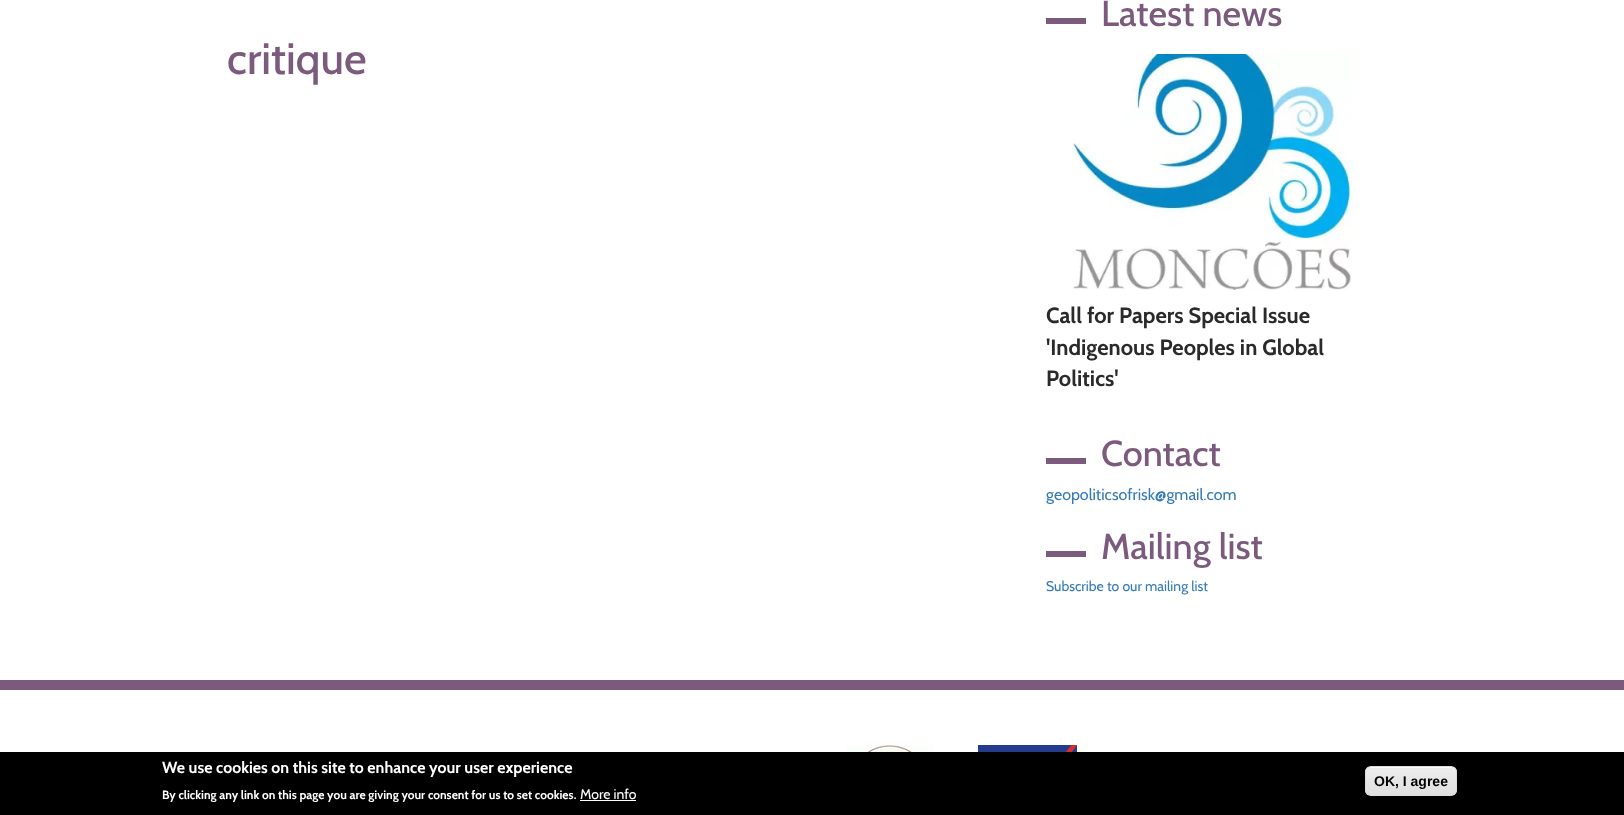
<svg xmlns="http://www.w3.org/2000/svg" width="1624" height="815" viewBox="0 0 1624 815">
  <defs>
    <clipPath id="clip1"><rect x="1365" y="766" width="92" height="30" rx="6"/></clipPath>
    <linearGradient id="g1" gradientUnits="userSpaceOnUse" x1="1411" y1="767" x2="1411" y2="795"><stop offset="0.05" stop-color="#ededed"/><stop offset="1" stop-color="#dfdfdf"/></linearGradient>
  </defs>
  <rect width="100%" height="100%" fill="#ffffff"/>
  <text x="227" y="74" font-family="Cabin" font-size="44" font-weight="500" fill="#7b5a7d">critique</text>
  <rect x="1046" y="18" width="40" height="6" fill="#7b5a7d"/>
  <text x="1101" y="26" font-family="Cabin" font-size="36" font-weight="500" fill="#7b5a7d">Latest news</text>
  <image x="1072" y="54" width="281" height="236" href="img1.png"/>
  <text x="1046" y="323" font-family="Cabin" font-size="22" font-weight="bold" fill="#2a2a2a">Call for Papers Special Issue</text>
  <text x="1046" y="355" font-family="Cabin" font-size="22" font-weight="bold" fill="#2a2a2a">'Indigenous Peoples in Global</text>
  <text x="1046" y="386" font-family="Cabin" font-size="22" font-weight="bold" fill="#2a2a2a">Politics'</text>
  <rect x="1046" y="458" width="40" height="6" fill="#7b5a7d"/>
  <text x="1101" y="466" font-family="Cabin" font-size="36" font-weight="500" fill="#7b5a7d">Contact</text>
  <text x="1046" y="500" font-family="Cabin" font-size="16" fill="#337ab7">geopoliticsofrisk@gmail.com</text>
  <rect x="1046" y="551" width="40" height="6" fill="#7b5a7d"/>
  <text x="1101" y="559" font-family="Cabin" font-size="36" font-weight="500" fill="#7b5a7d">Mailing list</text>
  <text x="1046" y="591" font-family="Cabin" font-size="14" fill="#337ab7">Subscribe to our mailing list</text>
  <rect x="0" y="680" width="1624" height="10" fill="#7b5a7d"/>
  <image x="845" y="745" width="89" height="7" href="img2.png"/>
  <image x="978" y="745" width="99" height="7" href="img3.png"/>
  <rect x="0" y="752" width="1624" height="63" fill="#000000"/>
  <text x="162" y="773" font-family="Cabin" font-size="16" font-weight="bold" fill="#ffffff">We use cookies on this site to enhance your user experience</text>
  <text x="162" y="799" font-family="Cabin" font-size="12" font-weight="bold" fill="#ffffff">By clicking any link on this page you are giving your consent for us to set cookies.</text>
  <text x="580" y="799" font-family="Cabin" font-size="14" fill="#ffffff">More info</text>
  <rect x="580" y="800" width="56" height="1" fill="#ffffff"/>
  <g clip-path="url(#clip1)">
    <rect x="1365" y="767" width="92" height="28" fill="url(#g1)"/>
  </g>
  <path d="M1371 768H1451C1454 768 1456 770 1456 773C1456 764 1443 767 1438 767H1384C1379 767 1366 764 1366 773C1366 770 1368 768 1371 768Z" fill="#ffffff"/>
  <rect x="1365.5" y="766.5" width="91" height="29" rx="5.5" fill="none" stroke="#dcdcdc"/>
  <text x="1374" y="786" font-family="Liberation Sans" font-size="14" font-weight="bold" fill="#000000">OK, I agree</text>
</svg>
